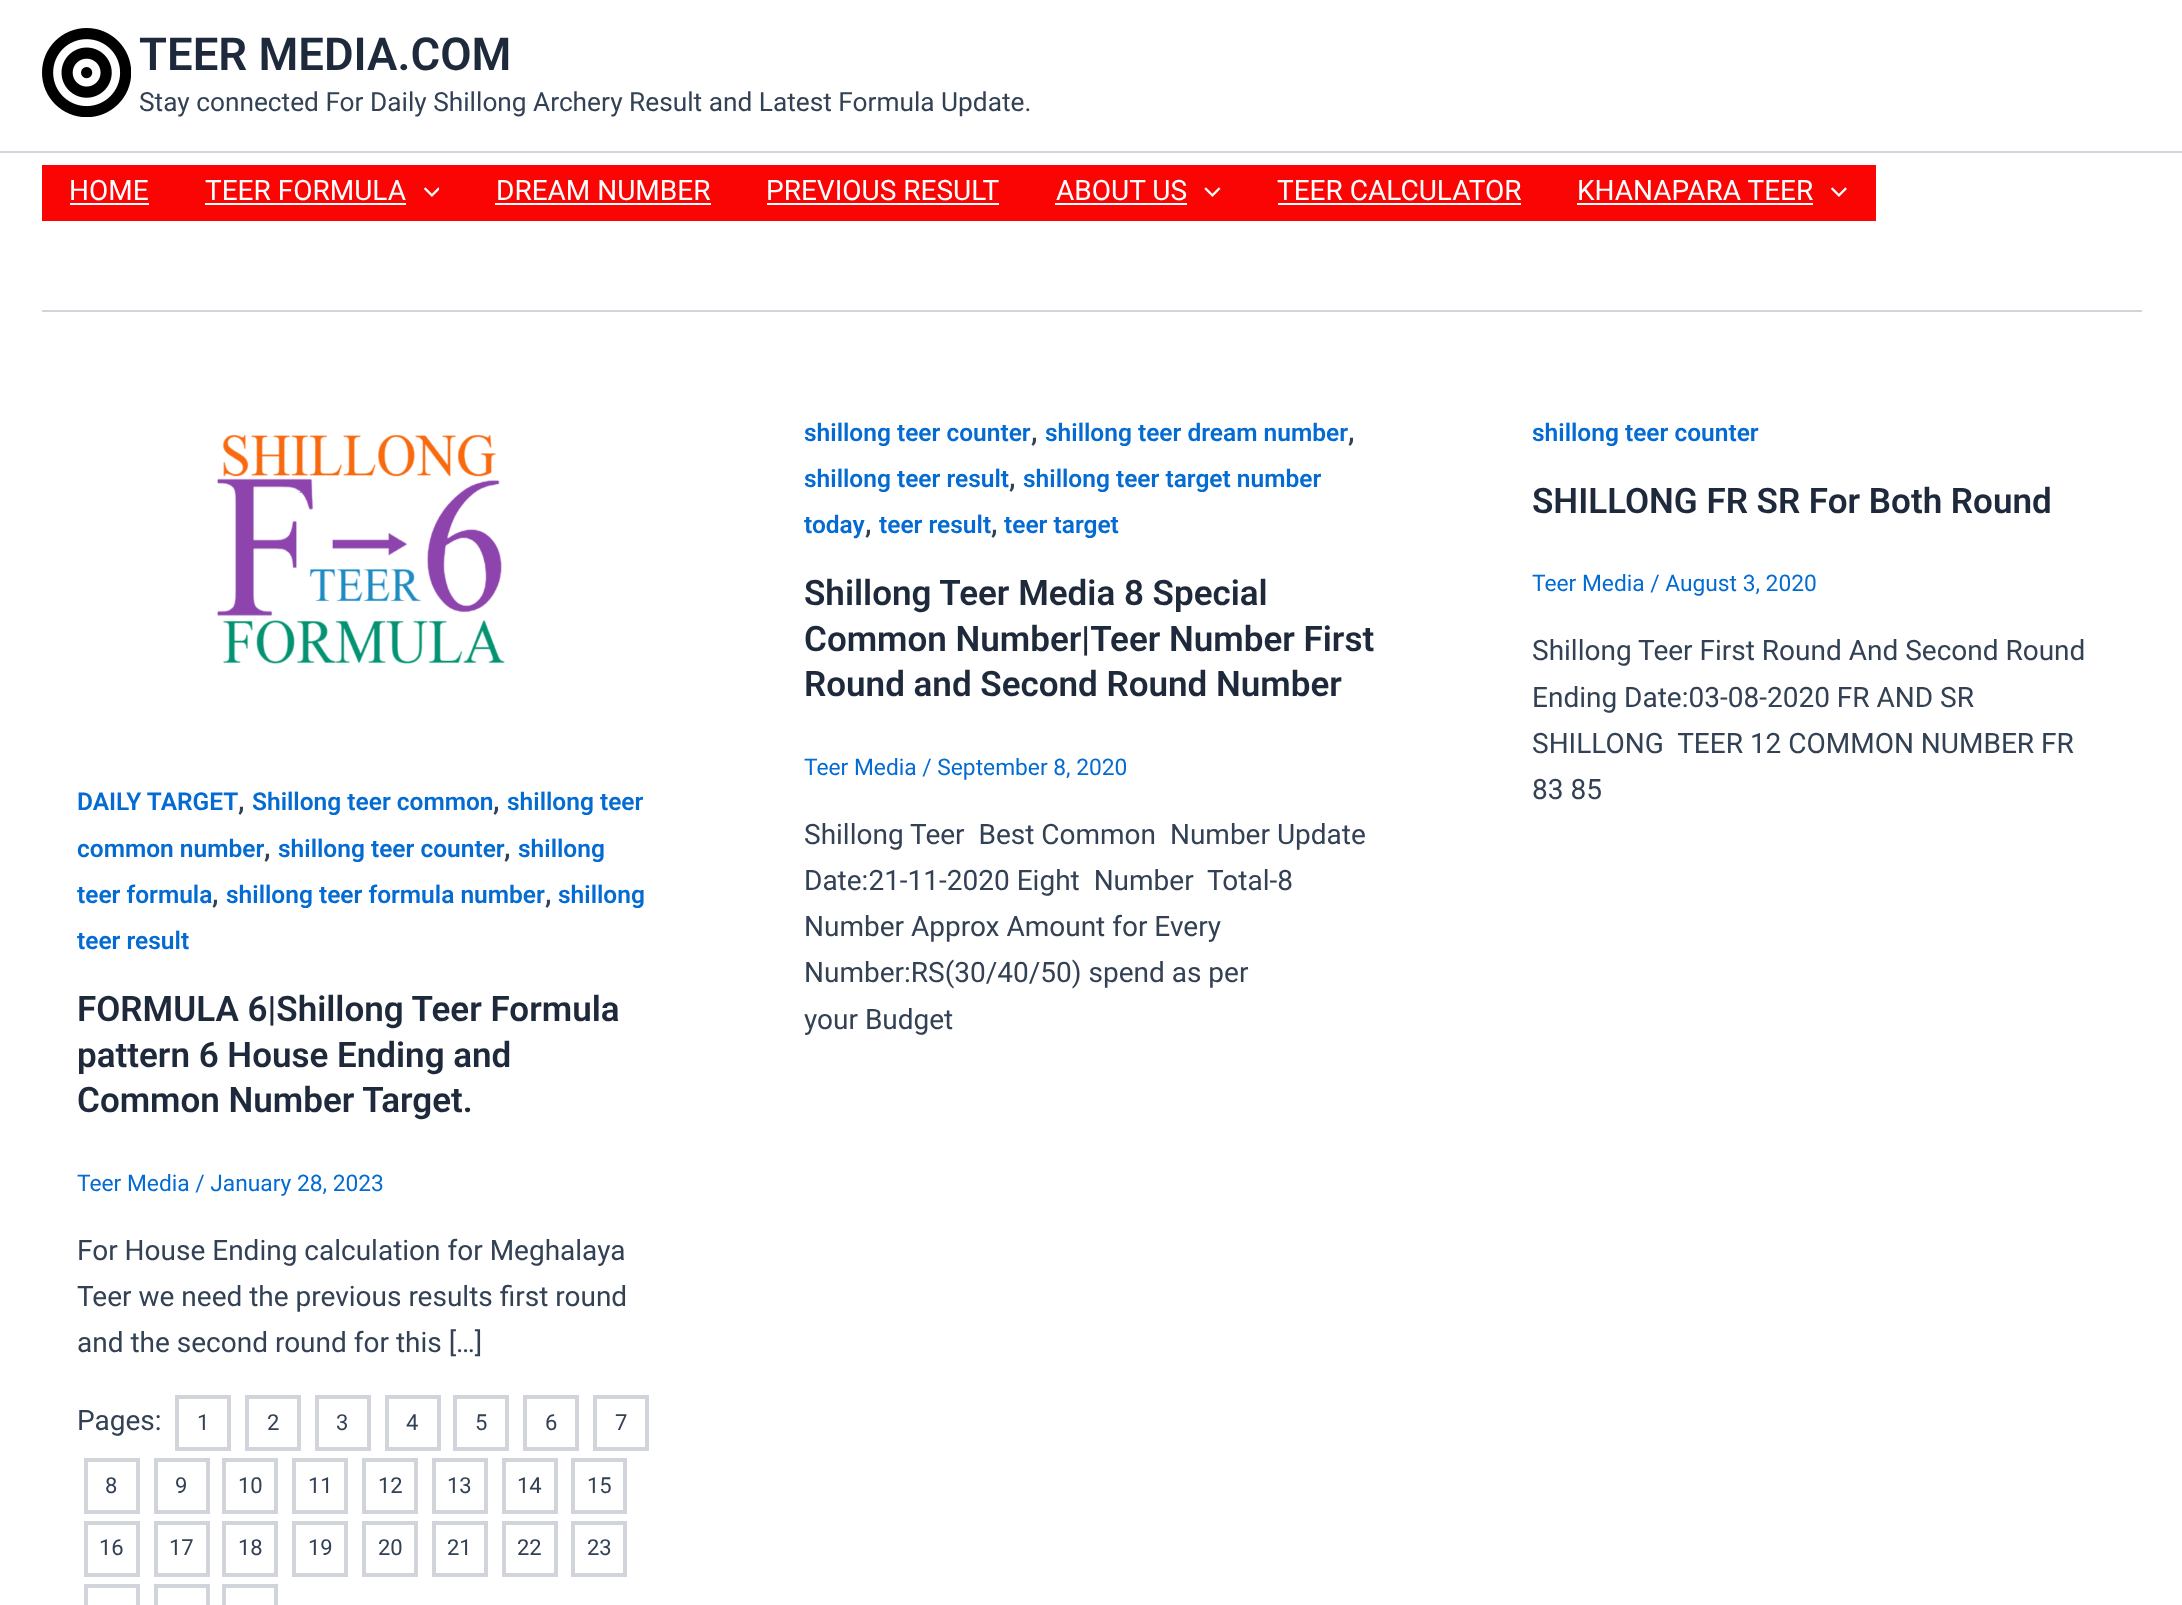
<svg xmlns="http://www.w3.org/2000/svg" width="2182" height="1605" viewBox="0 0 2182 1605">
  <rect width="100%" height="100%" fill="#ffffff"/>
  <rect x="0" y="151" width="2182" height="2" fill="#d1d5db"/>
  <image x="42" y="28" width="89" height="89" href="img1.png"/>
  <text x="139" y="70" font-family="Roboto" font-size="45.5" font-weight="600" fill="#1e293b">TEER MEDIA.COM</text>
  <text x="139" y="111" font-family="Roboto" font-size="26.25" fill="#334155">Stay connected For Daily Shillong Archery Result and Latest Formula Update.</text>
  <rect x="42" y="165" width="1834" height="56" fill="#fb0404"/>
  <text x="69" y="200" font-family="Roboto" font-size="28" fill="#ffffff">HOME</text>
  <rect x="70" y="203" width="79" height="2" fill="#ffffff"/>
  <text x="205" y="200" font-family="Roboto" font-size="28" fill="#ffffff">TEER FORMULA</text>
  <rect x="205" y="203" width="201" height="2" fill="#ffffff"/>
  <image x="424" y="187" width="15" height="10" href="img2.png"/>
  <text x="496" y="200" font-family="Roboto" font-size="28" fill="#ffffff">DREAM NUMBER</text>
  <rect x="495" y="203" width="216" height="2" fill="#ffffff"/>
  <text x="766" y="200" font-family="Roboto" font-size="28" fill="#ffffff">PREVIOUS RESULT</text>
  <rect x="767" y="203" width="232" height="2" fill="#ffffff"/>
  <text x="1056" y="200" font-family="Roboto" font-size="28" fill="#ffffff">ABOUT US</text>
  <rect x="1055" y="203" width="132" height="2" fill="#ffffff"/>
  <image x="1204" y="187" width="17" height="10" href="img3.png"/>
  <text x="1277" y="200" font-family="Roboto" font-size="28" fill="#ffffff">TEER CALCULATOR</text>
  <rect x="1278" y="203" width="243" height="2" fill="#ffffff"/>
  <text x="1577" y="200" font-family="Roboto" font-size="28" fill="#ffffff">KHANAPARA TEER</text>
  <rect x="1577" y="203" width="236" height="2" fill="#ffffff"/>
  <image x="1831" y="187" width="16" height="10" href="img4.png"/>
  <rect x="42" y="310" width="2100" height="2" fill="#d1d5db"/>
  <text x="804" y="441" font-family="Roboto" font-size="24.5" font-weight="600" fill="#046bd2">shillong teer counter</text>
  <text x="1031" y="441" font-family="Roboto" font-size="28" font-weight="600" fill="#334155">,</text>
  <text x="1045" y="441" font-family="Roboto" font-size="24.5" font-weight="600" fill="#046bd2">shillong teer dream number</text>
  <text x="1348" y="441" font-family="Roboto" font-size="28" font-weight="600" fill="#334155">,</text>
  <text x="804" y="487" font-family="Roboto" font-size="24.5" font-weight="600" fill="#046bd2">shillong teer result</text>
  <text x="1009" y="487" font-family="Roboto" font-size="28" font-weight="600" fill="#334155">,</text>
  <text x="1023" y="487" font-family="Roboto" font-size="24.5" font-weight="600" fill="#046bd2">shillong teer target number</text>
  <text x="804" y="533" font-family="Roboto" font-size="24.5" font-weight="600" fill="#046bd2">today</text>
  <text x="865" y="533" font-family="Roboto" font-size="28" font-weight="600" fill="#334155">,</text>
  <text x="879" y="533" font-family="Roboto" font-size="24.5" font-weight="600" fill="#046bd2">teer result</text>
  <text x="991" y="533" font-family="Roboto" font-size="28" font-weight="600" fill="#334155">,</text>
  <text x="1004" y="533" font-family="Roboto" font-size="24.5" font-weight="600" fill="#046bd2">teer target</text>
  <text x="804" y="605" font-family="Roboto" font-size="35" font-weight="600" fill="#1e293b">Shillong Teer Media 8 Special</text>
  <text x="804" y="651" font-family="Roboto" font-size="35" font-weight="600" fill="#1e293b">Common Number|Teer Number First</text>
  <text x="804" y="696" font-family="Roboto" font-size="35" font-weight="600" fill="#1e293b">Round and Second Round Number</text>
  <text x="804" y="775" font-family="Roboto" font-size="22.75" fill="#046bd2">Teer Media / September 8, 2020</text>
  <text x="804" y="844" font-family="Roboto" font-size="28" fill="#334155" xml:space="preserve">Shillong Teer  Best Common  Number Update</text>
  <text x="804" y="890" font-family="Roboto" font-size="28" fill="#334155" xml:space="preserve">Date:21-11-2020 Eight  Number  Total-8</text>
  <text x="804" y="936" font-family="Roboto" font-size="28" fill="#334155">Number Approx Amount for Every</text>
  <text x="804" y="982" font-family="Roboto" font-size="28" fill="#334155">Number:RS(30/40/50) spend as per</text>
  <text x="804" y="1029" font-family="Roboto" font-size="28" fill="#334155">your Budget</text>
  <text x="1532" y="441" font-family="Roboto" font-size="24.5" font-weight="600" fill="#046bd2">shillong teer counter</text>
  <text x="1532" y="513" font-family="Roboto" font-size="35" font-weight="600" fill="#1e293b">SHILLONG FR SR For Both Round</text>
  <text x="1532" y="591" font-family="Roboto" font-size="22.75" fill="#046bd2">Teer Media / August 3, 2020</text>
  <text x="1532" y="660" font-family="Roboto" font-size="28" fill="#334155">Shillong Teer First Round And Second Round</text>
  <text x="1532" y="707" font-family="Roboto" font-size="28" fill="#334155">Ending Date:03-08-2020 FR AND SR</text>
  <text x="1532" y="753" font-family="Roboto" font-size="28" fill="#334155" xml:space="preserve">SHILLONG  TEER 12 COMMON NUMBER FR</text>
  <text x="1532" y="799" font-family="Roboto" font-size="28" fill="#334155">83 85</text>
  <image x="217" y="435" width="288" height="229" href="img5.png"/>
  <text x="77" y="810" font-family="Roboto" font-size="24.5" font-weight="600" fill="#046bd2">DAILY TARGET</text>
  <text x="238" y="810" font-family="Roboto" font-size="28" font-weight="600" fill="#334155">,</text>
  <text x="252" y="810" font-family="Roboto" font-size="24.5" font-weight="600" fill="#046bd2">Shillong teer common</text>
  <text x="493" y="810" font-family="Roboto" font-size="28" font-weight="600" fill="#334155">,</text>
  <text x="507" y="810" font-family="Roboto" font-size="24.5" font-weight="600" fill="#046bd2">shillong teer</text>
  <text x="77" y="857" font-family="Roboto" font-size="24.5" font-weight="600" fill="#046bd2">common number</text>
  <text x="264" y="857" font-family="Roboto" font-size="28" font-weight="600" fill="#334155">,</text>
  <text x="278" y="857" font-family="Roboto" font-size="24.5" font-weight="600" fill="#046bd2">shillong teer counter</text>
  <text x="504" y="857" font-family="Roboto" font-size="28" font-weight="600" fill="#334155">,</text>
  <text x="518" y="857" font-family="Roboto" font-size="24.5" font-weight="600" fill="#046bd2">shillong</text>
  <text x="77" y="903" font-family="Roboto" font-size="24.5" font-weight="600" fill="#046bd2">teer formula</text>
  <text x="212" y="903" font-family="Roboto" font-size="28" font-weight="600" fill="#334155">,</text>
  <text x="226" y="903" font-family="Roboto" font-size="24.5" font-weight="600" fill="#046bd2">shillong teer formula number</text>
  <text x="545" y="903" font-family="Roboto" font-size="28" font-weight="600" fill="#334155">,</text>
  <text x="558" y="903" font-family="Roboto" font-size="24.5" font-weight="600" fill="#046bd2">shillong</text>
  <text x="77" y="949" font-family="Roboto" font-size="24.5" font-weight="600" fill="#046bd2">teer result</text>
  <text x="77" y="1021" font-family="Roboto" font-size="35" font-weight="600" fill="#1e293b">FORMULA 6|Shillong Teer Formula</text>
  <text x="77" y="1067" font-family="Roboto" font-size="35" font-weight="600" fill="#1e293b">pattern 6 House Ending and</text>
  <text x="77" y="1112" font-family="Roboto" font-size="35" font-weight="600" fill="#1e293b">Common Number Target.</text>
  <text x="77" y="1191" font-family="Roboto" font-size="22.75" fill="#046bd2">Teer Media / January 28, 2023</text>
  <text x="77" y="1260" font-family="Roboto" font-size="28" fill="#334155">For House Ending calculation for Meghalaya</text>
  <text x="77" y="1306" font-family="Roboto" font-size="28" fill="#334155">Teer we need the previous results first round</text>
  <text x="77" y="1352" font-family="Roboto" font-size="28" fill="#334155">and the second round for this […]</text>
  <text x="77" y="1430" font-family="Roboto" font-size="28" fill="#334155">Pages:</text>
  <rect x="177" y="1397" width="52" height="52" fill="none" stroke="#d1d5db" stroke-width="4"/>
  <text x="197" y="1430" font-family="Roboto" font-size="22" fill="#334155">1</text>
  <rect x="247" y="1397" width="52" height="52" fill="none" stroke="#d1d5db" stroke-width="4"/>
  <text x="267" y="1430" font-family="Roboto" font-size="22" fill="#334155">2</text>
  <rect x="317" y="1397" width="52" height="52" fill="none" stroke="#d1d5db" stroke-width="4"/>
  <text x="336" y="1430" font-family="Roboto" font-size="22" fill="#334155">3</text>
  <rect x="387" y="1397" width="52" height="52" fill="none" stroke="#d1d5db" stroke-width="4"/>
  <text x="406" y="1430" font-family="Roboto" font-size="22" fill="#334155">4</text>
  <rect x="455" y="1397" width="52" height="52" fill="none" stroke="#d1d5db" stroke-width="4"/>
  <text x="475" y="1430" font-family="Roboto" font-size="22" fill="#334155">5</text>
  <rect x="525" y="1397" width="52" height="52" fill="none" stroke="#d1d5db" stroke-width="4"/>
  <text x="545" y="1430" font-family="Roboto" font-size="22" fill="#334155">6</text>
  <rect x="595" y="1397" width="52" height="52" fill="none" stroke="#d1d5db" stroke-width="4"/>
  <text x="615" y="1430" font-family="Roboto" font-size="22" fill="#334155">7</text>
  <rect x="86" y="1460" width="52" height="52" fill="none" stroke="#d1d5db" stroke-width="4"/>
  <text x="105" y="1493" font-family="Roboto" font-size="22" fill="#334155">8</text>
  <rect x="156" y="1460" width="52" height="52" fill="none" stroke="#d1d5db" stroke-width="4"/>
  <text x="175" y="1493" font-family="Roboto" font-size="22" fill="#334155">9</text>
  <rect x="224" y="1460" width="52" height="52" fill="none" stroke="#d1d5db" stroke-width="4"/>
  <text x="238" y="1493" font-family="Roboto" font-size="22" fill="#334155">10</text>
  <rect x="294" y="1460" width="52" height="52" fill="none" stroke="#d1d5db" stroke-width="4"/>
  <text x="308" y="1493" font-family="Roboto" font-size="22" fill="#334155">11</text>
  <rect x="364" y="1460" width="52" height="52" fill="none" stroke="#d1d5db" stroke-width="4"/>
  <text x="378" y="1493" font-family="Roboto" font-size="22" fill="#334155">12</text>
  <rect x="434" y="1460" width="52" height="52" fill="none" stroke="#d1d5db" stroke-width="4"/>
  <text x="447" y="1493" font-family="Roboto" font-size="22" fill="#334155">13</text>
  <rect x="504" y="1460" width="52" height="52" fill="none" stroke="#d1d5db" stroke-width="4"/>
  <text x="517" y="1493" font-family="Roboto" font-size="22" fill="#334155">14</text>
  <rect x="573" y="1460" width="52" height="52" fill="none" stroke="#d1d5db" stroke-width="4"/>
  <text x="587" y="1493" font-family="Roboto" font-size="22" fill="#334155">15</text>
  <rect x="86" y="1523" width="52" height="52" fill="none" stroke="#d1d5db" stroke-width="4"/>
  <text x="99" y="1555" font-family="Roboto" font-size="22" fill="#334155">16</text>
  <rect x="156" y="1523" width="52" height="52" fill="none" stroke="#d1d5db" stroke-width="4"/>
  <text x="169" y="1555" font-family="Roboto" font-size="22" fill="#334155">17</text>
  <rect x="224" y="1523" width="52" height="52" fill="none" stroke="#d1d5db" stroke-width="4"/>
  <text x="238" y="1555" font-family="Roboto" font-size="22" fill="#334155">18</text>
  <rect x="294" y="1523" width="52" height="52" fill="none" stroke="#d1d5db" stroke-width="4"/>
  <text x="308" y="1555" font-family="Roboto" font-size="22" fill="#334155">19</text>
  <rect x="364" y="1523" width="52" height="52" fill="none" stroke="#d1d5db" stroke-width="4"/>
  <text x="378" y="1555" font-family="Roboto" font-size="22" fill="#334155">20</text>
  <rect x="434" y="1523" width="52" height="52" fill="none" stroke="#d1d5db" stroke-width="4"/>
  <text x="447" y="1555" font-family="Roboto" font-size="22" fill="#334155">21</text>
  <rect x="504" y="1523" width="52" height="52" fill="none" stroke="#d1d5db" stroke-width="4"/>
  <text x="517" y="1555" font-family="Roboto" font-size="22" fill="#334155">22</text>
  <rect x="573" y="1523" width="52" height="52" fill="none" stroke="#d1d5db" stroke-width="4"/>
  <text x="587" y="1555" font-family="Roboto" font-size="22" fill="#334155">23</text>
  <rect x="86" y="1586" width="52" height="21" fill="none" stroke="#d1d5db" stroke-width="4"/>
  <rect x="156" y="1586" width="52" height="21" fill="none" stroke="#d1d5db" stroke-width="4"/>
  <rect x="224" y="1586" width="52" height="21" fill="none" stroke="#d1d5db" stroke-width="4"/>
</svg>
